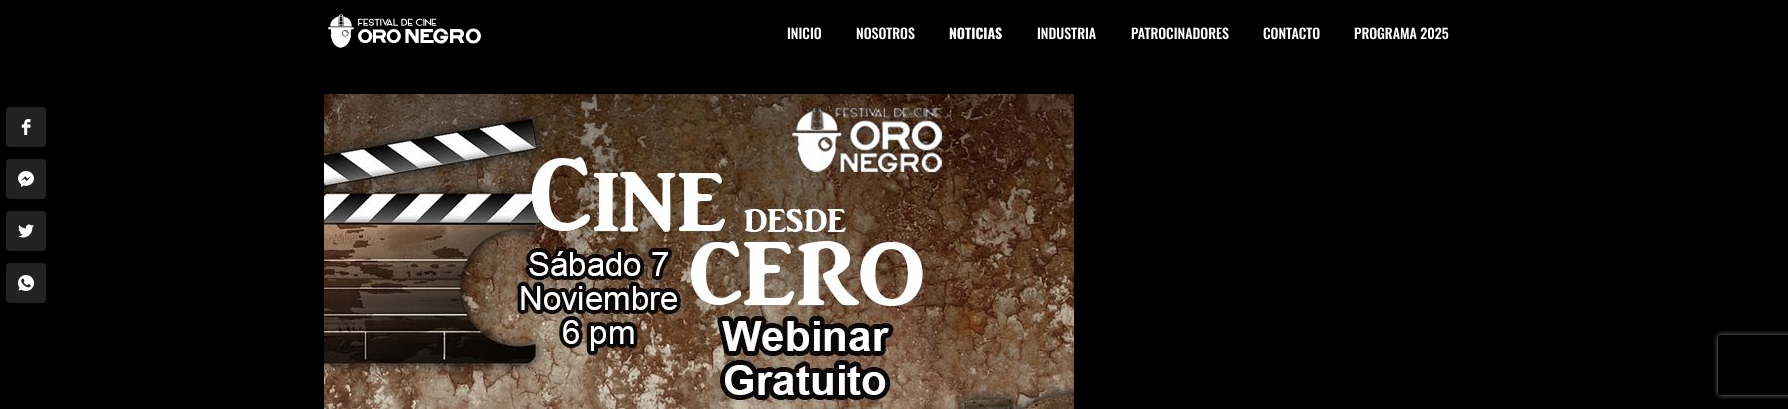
<svg xmlns="http://www.w3.org/2000/svg" width="1788" height="409" viewBox="0 0 1788 409">
  <defs>
    <clipPath id="clip1"><path d="M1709 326H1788V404H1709ZM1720 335H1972C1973 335 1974 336 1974 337V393C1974 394 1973 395 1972 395H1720C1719 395 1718 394 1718 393V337C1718 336 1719 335 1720 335Z" clip-rule="evenodd"/></clipPath>
    <filter id="blur1" x="-50%" y="-200%" width="200%" height="500%"><feGaussianBlur stdDeviation="2.5"/></filter>
  </defs>
  <rect width="100%" height="100%" fill="#000000"/>
  <image x="328" y="14" width="153" height="34" href="img1.png"/>
  <text x="787" y="39" font-family="Oswald" font-size="14" font-weight="500" fill="#ffffff">INICIO</text>
  <text x="856" y="39" font-family="Oswald" font-size="14" font-weight="500" fill="#ffffff">NOSOTROS</text>
  <text x="949" y="39" font-family="Oswald" font-size="14" font-weight="bold" fill="#ffffff">NOTICIAS</text>
  <text x="1037" y="39" font-family="Oswald" font-size="14" font-weight="500" fill="#ffffff">INDUSTRIA</text>
  <text x="1131" y="39" font-family="Oswald" font-size="14" font-weight="500" fill="#ffffff">PATROCINADORES</text>
  <text x="1263" y="39" font-family="Oswald" font-size="14" font-weight="500" fill="#ffffff">CONTACTO</text>
  <text x="1354" y="39" font-family="Oswald" font-size="14" font-weight="500" fill="#ffffff">PROGRAMA 2025</text>
  <rect x="6" y="107" width="40" height="40" rx="4" fill="#222222"/>
  <image x="21" y="119" width="10" height="16" href="img2.png"/>
  <rect x="6" y="159" width="40" height="40" rx="4" fill="#222222"/>
  <image x="18" y="171" width="16" height="16" href="img3.png"/>
  <rect x="6" y="211" width="40" height="40" rx="4" fill="#222222"/>
  <image x="18" y="224" width="16" height="14" href="img4.png"/>
  <rect x="6" y="263" width="40" height="40" rx="4" fill="#222222"/>
  <image x="18" y="275" width="16" height="16" href="img5.png"/>
  <image x="324" y="94" width="750" height="315" href="img6.png"/>
  <g clip-path="url(#clip1)">
    <rect x="1718" y="335" width="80" height="60" rx="2" fill="#808080" filter="url(#blur1)"/>
  </g>
</svg>
